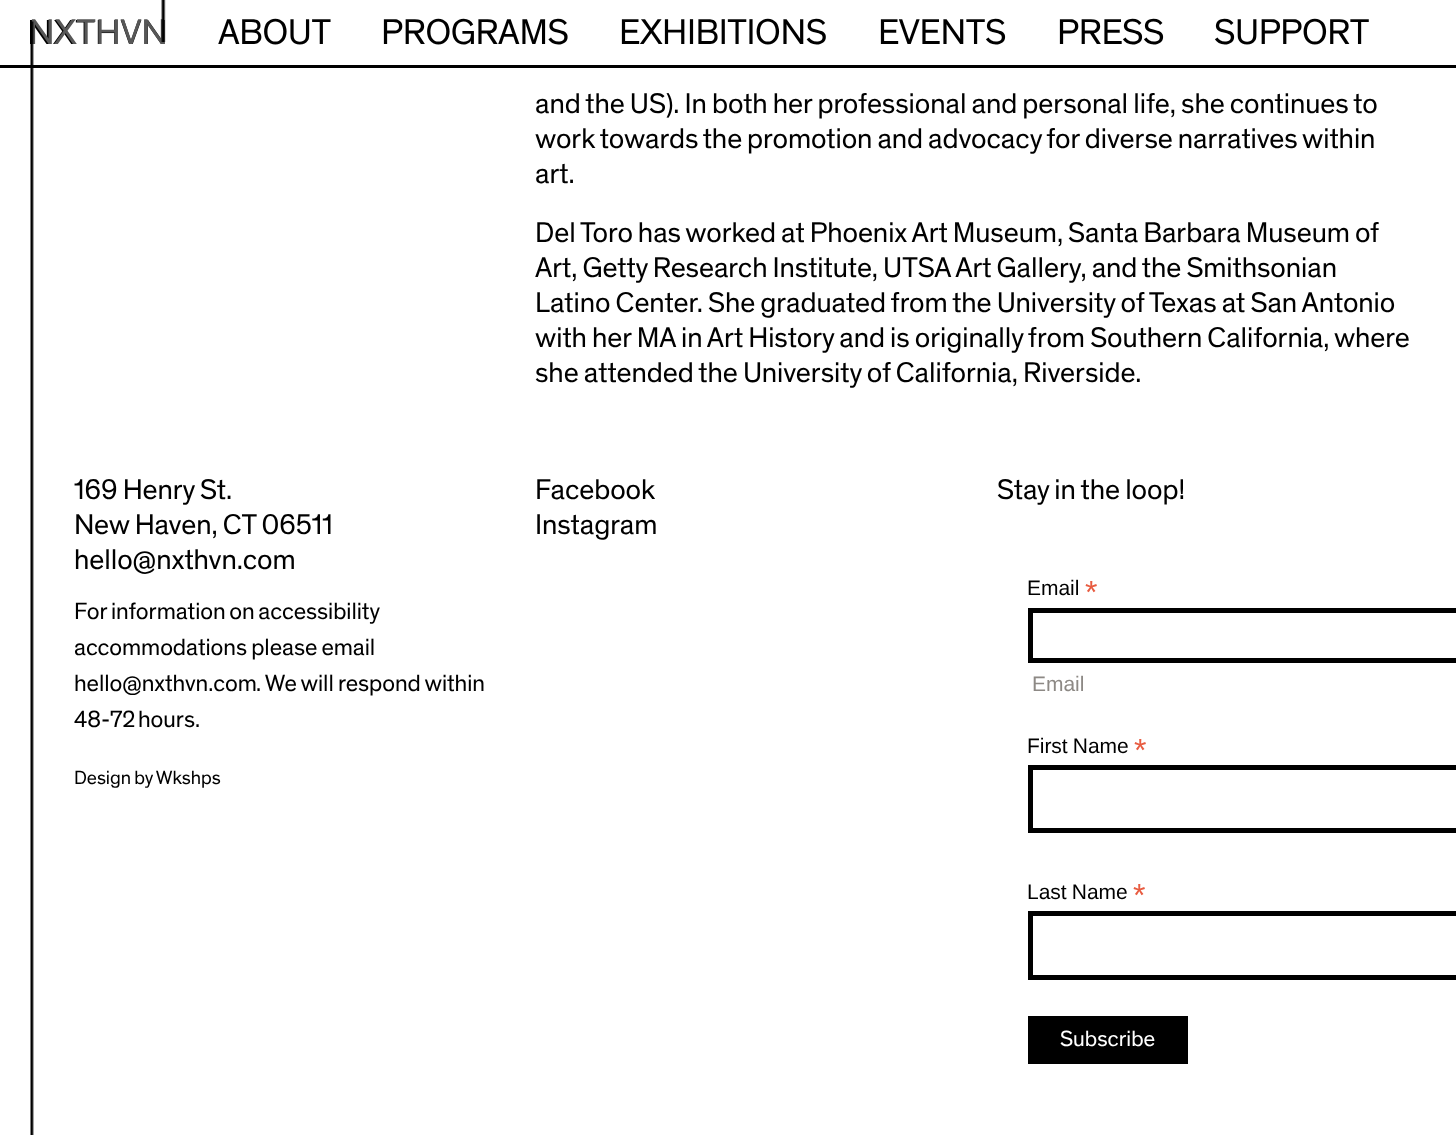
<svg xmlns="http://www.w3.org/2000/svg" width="1456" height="1135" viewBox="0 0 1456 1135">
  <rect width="100%" height="100%" fill="#ffffff"/>
  <rect x="0" y="65" width="1456" height="3" fill="#000000"/>
  <image x="30" y="20" width="135" height="24" href="img1.png"/>
  <text x="29" y="44" font-family="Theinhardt" font-size="36.5" letter-spacing="-0.4" fill="#575757">NXTHVN</text>
  <image x="161" y="0" width="5" height="42" href="img2.png"/>
  <image x="30" y="21" width="4" height="1114" href="img3.png"/>
  <text x="218" y="44" font-family="Theinhardt" font-size="36.5" letter-spacing="-0.4" fill="#000000">ABOUT</text>
  <text x="381" y="44" font-family="Theinhardt" font-size="36.5" letter-spacing="-0.4" fill="#000000">PROGRAMS</text>
  <text x="619" y="44" font-family="Theinhardt" font-size="36.5" letter-spacing="-0.4" fill="#000000">EXHIBITIONS</text>
  <text x="878" y="44" font-family="Theinhardt" font-size="36.5" letter-spacing="-0.4" fill="#000000">EVENTS</text>
  <text x="1057" y="44" font-family="Theinhardt" font-size="36.5" letter-spacing="-0.4" fill="#000000">PRESS</text>
  <text x="1214" y="44" font-family="Theinhardt" font-size="36.5" letter-spacing="-0.4" fill="#000000">SUPPORT</text>
  <text x="535" y="113" word-spacing="-0.6" font-family="Theinhardt" font-size="29.1" letter-spacing="-0.05" fill="#000000">and the US). In both her professional and personal life, she continues to</text>
  <text x="535" y="148" word-spacing="-0.75" font-family="Theinhardt" font-size="29.1" letter-spacing="-0.05" fill="#000000">work towards the promotion and advocacy for diverse narratives within</text>
  <text x="535" y="183" font-family="Theinhardt" font-size="29.1" letter-spacing="-0.05" fill="#000000">art.</text>
  <text x="535" y="242" word-spacing="-0.75" font-family="Theinhardt" font-size="29.1" letter-spacing="-0.05" fill="#000000">Del Toro has worked at Phoenix Art Museum, Santa Barbara Museum of</text>
  <text x="535" y="277" word-spacing="-0.6" font-family="Theinhardt" font-size="29.1" letter-spacing="-0.05" fill="#000000">Art, Getty Research Institute, UTSA Art Gallery, and the Smithsonian</text>
  <text x="535" y="312" word-spacing="-0.6" font-family="Theinhardt" font-size="29.1" letter-spacing="-0.05" fill="#000000">Latino Center. She graduated from the University of Texas at San Antonio</text>
  <text x="535" y="347" word-spacing="-0.6" font-family="Theinhardt" font-size="29.1" letter-spacing="-0.05" fill="#000000">with her MA in Art History and is originally from Southern California, where</text>
  <text x="535" y="382" word-spacing="-0.5" font-family="Theinhardt" font-size="29.1" letter-spacing="-0.05" fill="#000000">she attended the University of California, Riverside.</text>
  <text x="74" y="499" word-spacing="-0.5" font-family="Theinhardt" font-size="29.1" letter-spacing="-0.05" fill="#000000">169 Henry St.</text>
  <text x="74" y="534" word-spacing="-0.5" font-family="Theinhardt" font-size="29.1" letter-spacing="-0.05" fill="#000000">New Haven, CT 06511</text>
  <text x="74" y="569" font-family="Theinhardt" font-size="29.1" letter-spacing="-0.05" fill="#000000">hello@nxthvn.com</text>
  <text x="74" y="619" word-spacing="-1" font-family="Theinhardt" font-size="24" letter-spacing="-0.05" fill="#000000">For information on accessibility</text>
  <text x="74" y="655" word-spacing="-0.5" font-family="Theinhardt" font-size="24" letter-spacing="-0.05" fill="#000000">accommodations please email</text>
  <text x="74" y="691" font-family="Theinhardt" font-size="24" letter-spacing="-0.05" fill="#000000">hello@nxthvn.com</text>
  <text x="256" y="691" word-spacing="-0.5" font-family="Theinhardt" font-size="24" letter-spacing="-0.05" fill="#000000">. We will respond within</text>
  <text x="74" y="727" font-family="Theinhardt" font-size="24" letter-spacing="-0.05" fill="#000000">48-72</text>
  <text x="138" y="727" font-family="Theinhardt" font-size="24" letter-spacing="-0.05" fill="#000000">hours.</text>
  <text x="74" y="784" word-spacing="-0.5" font-family="Theinhardt" font-size="19.5" letter-spacing="-0.05" fill="#000000">Design by Wkshps</text>
  <text x="535" y="499" font-family="Theinhardt" font-size="29.1" letter-spacing="-0.05" fill="#000000">Facebook</text>
  <text x="535" y="534" font-family="Theinhardt" font-size="29.1" letter-spacing="-0.05" fill="#000000">Instagram</text>
  <text x="997" y="499" word-spacing="-0.5" font-family="Theinhardt" font-size="29.1" letter-spacing="-0.05" fill="#000000">Stay in the loop!</text>
  <text x="1027" y="595" font-family="Liberation Sans" font-size="21" letter-spacing="-0.05" fill="#000000">Email</text>
  <text x="1085" y="603" font-family="Liberation Sans" font-size="32" letter-spacing="-0.05" fill="#e85c41">*</text>
  <rect x="1030.5" y="610.5" width="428" height="50" fill="none" stroke="#000000" stroke-width="5"/>
  <text x="1032" y="691" font-family="Liberation Sans" font-size="21" letter-spacing="-0.05" fill="#8d8985">Email</text>
  <text x="1027" y="753" word-spacing="-0.5" font-family="Liberation Sans" font-size="21" letter-spacing="-0.05" fill="#000000">First Name</text>
  <text x="1134" y="761" font-family="Liberation Sans" font-size="32" letter-spacing="-0.05" fill="#e85c41">*</text>
  <rect x="1030.5" y="767.5" width="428" height="63" fill="none" stroke="#000000" stroke-width="5"/>
  <text x="1027" y="899" word-spacing="-0.5" font-family="Liberation Sans" font-size="21" letter-spacing="-0.05" fill="#000000">Last Name</text>
  <text x="1133" y="906" font-family="Liberation Sans" font-size="32" letter-spacing="-0.05" fill="#e85c41">*</text>
  <rect x="1030.5" y="913.5" width="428" height="64" fill="none" stroke="#000000" stroke-width="5"/>
  <rect x="1028" y="1016" width="160" height="48" fill="#000000"/>
  <text x="1060" y="1046" font-family="Theinhardt" font-size="22.5" fill="#ffffff">Subscribe</text>
</svg>
